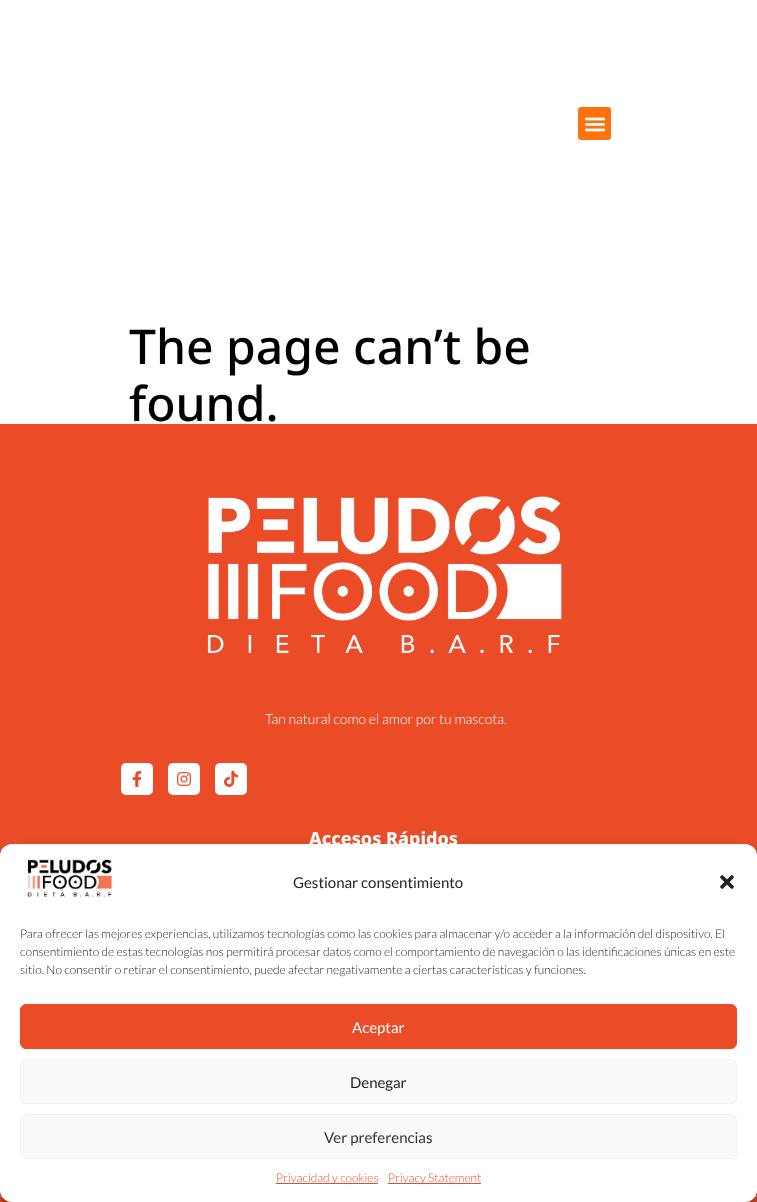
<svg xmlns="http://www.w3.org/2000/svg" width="757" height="1202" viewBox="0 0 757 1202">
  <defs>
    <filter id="blur1" x="-50%" y="-200%" width="200%" height="500%"><feGaussianBlur stdDeviation="3"/></filter>
    <filter id="blur2" x="-50%" y="-200%" width="200%" height="500%"><feGaussianBlur stdDeviation="10"/></filter>
  </defs>
  <rect width="100%" height="100%" fill="#ffffff"/>
  <rect x="578" y="107" width="33" height="33" rx="3" fill="#ff720f"/>
  <image x="584" y="117" width="22" height="15" href="img1.png"/>
  <text x="129" y="364" font-family="Noto Sans" font-size="48" font-weight="500" fill="#000000">The page can’t be</text>
  <text x="129" y="421" font-family="Noto Sans" font-size="48" font-weight="500" fill="#000000">found.</text>
  <rect x="0" y="424" width="757" height="778" fill="#eb4c28"/>
  <image x="207" y="496" width="355" height="158" href="img2.png"/>
  <text x="265" y="724" font-family="Lato" font-size="14" font-weight="300" fill="#ffffff">Tan natural como el amor por tu mascota.</text>
  <rect x="121" y="763" width="32" height="32" rx="5" fill="#ffffff"/>
  <image x="132" y="771" width="10" height="16" href="img3.png"/>
  <rect x="168" y="763" width="32" height="32" rx="5" fill="#ffffff"/>
  <image x="177" y="772" width="14" height="14" href="img4.png"/>
  <rect x="215" y="763" width="32" height="32" rx="5" fill="#ffffff"/>
  <image x="224" y="771" width="14" height="16" href="img5.png"/>
  <text x="309" y="845" font-family="Noto Sans" font-size="18" font-weight="800" fill="#ffffff">Accesos Rápidos</text>
  <rect x="0" y="1196" width="757" height="1" fill="#f3917c"/>
  <rect x="0" y="850" width="757" height="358" rx="12" fill="#000000" fill-opacity="0.23" filter="url(#blur1)"/>
  <rect x="0" y="854" width="757" height="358" rx="12" fill="#000000" fill-opacity="0.19" filter="url(#blur2)"/>
  <rect x="0" y="844" width="757" height="358" rx="12" fill="#ffffff"/>
  <image x="27" y="859" width="86" height="38" href="img6.png"/>
  <text x="293" y="888" font-family="Lato" font-size="15" fill="#222222">Gestionar consentimiento</text>
  <image x="720" y="875" width="14" height="14" href="img7.png"/>
  <text x="20" y="938" font-family="Lato" font-size="12" font-weight="300" fill="#222222">Para ofrecer las mejores experiencias, utilizamos tecnologías como las cookies para almacenar y/o acceder a la información del dispositivo. El</text>
  <text x="20" y="956" font-family="Lato" font-size="12" font-weight="300" fill="#222222">consentimiento de estas tecnologías nos permitirá procesar datos como el comportamiento de navegación o las identificaciones únicas en este</text>
  <text x="20" y="974" font-family="Lato" font-size="12" font-weight="300" fill="#222222">sitio. No consentir o retirar el consentimiento, puede afectar negativamente a ciertas características y funciones.</text>
  <rect x="20.5" y="1004.5" width="716" height="44" rx="5.5" fill="#eb4c28" stroke="#eb4c28"/>
  <text x="352" y="1033" font-family="Lato" font-size="15" fill="#ffffff">Aceptar</text>
  <rect x="20.5" y="1059.5" width="716" height="44" rx="5.5" fill="#f9f9f9" stroke="#f2f2f2"/>
  <text x="350" y="1088" font-family="Lato" font-size="15" fill="#222222">Denegar</text>
  <rect x="20.5" y="1114.5" width="716" height="44" rx="5.5" fill="#f9f9f9" stroke="#f2f2f2"/>
  <text x="324" y="1143" font-family="Lato" font-size="15" fill="#333333">Ver preferencias</text>
  <rect x="276" y="1183" width="102" height="1" fill="#eb4c28"/>
  <text x="276" y="1182" font-family="Lato" font-size="12" font-weight="300" fill="#eb4c28">Privacidad y cookies</text>
  <rect x="388" y="1183" width="93" height="1" fill="#eb4c28"/>
  <text x="388" y="1182" font-family="Lato" font-size="12" font-weight="300" fill="#eb4c28">Privacy Statement</text>
</svg>
